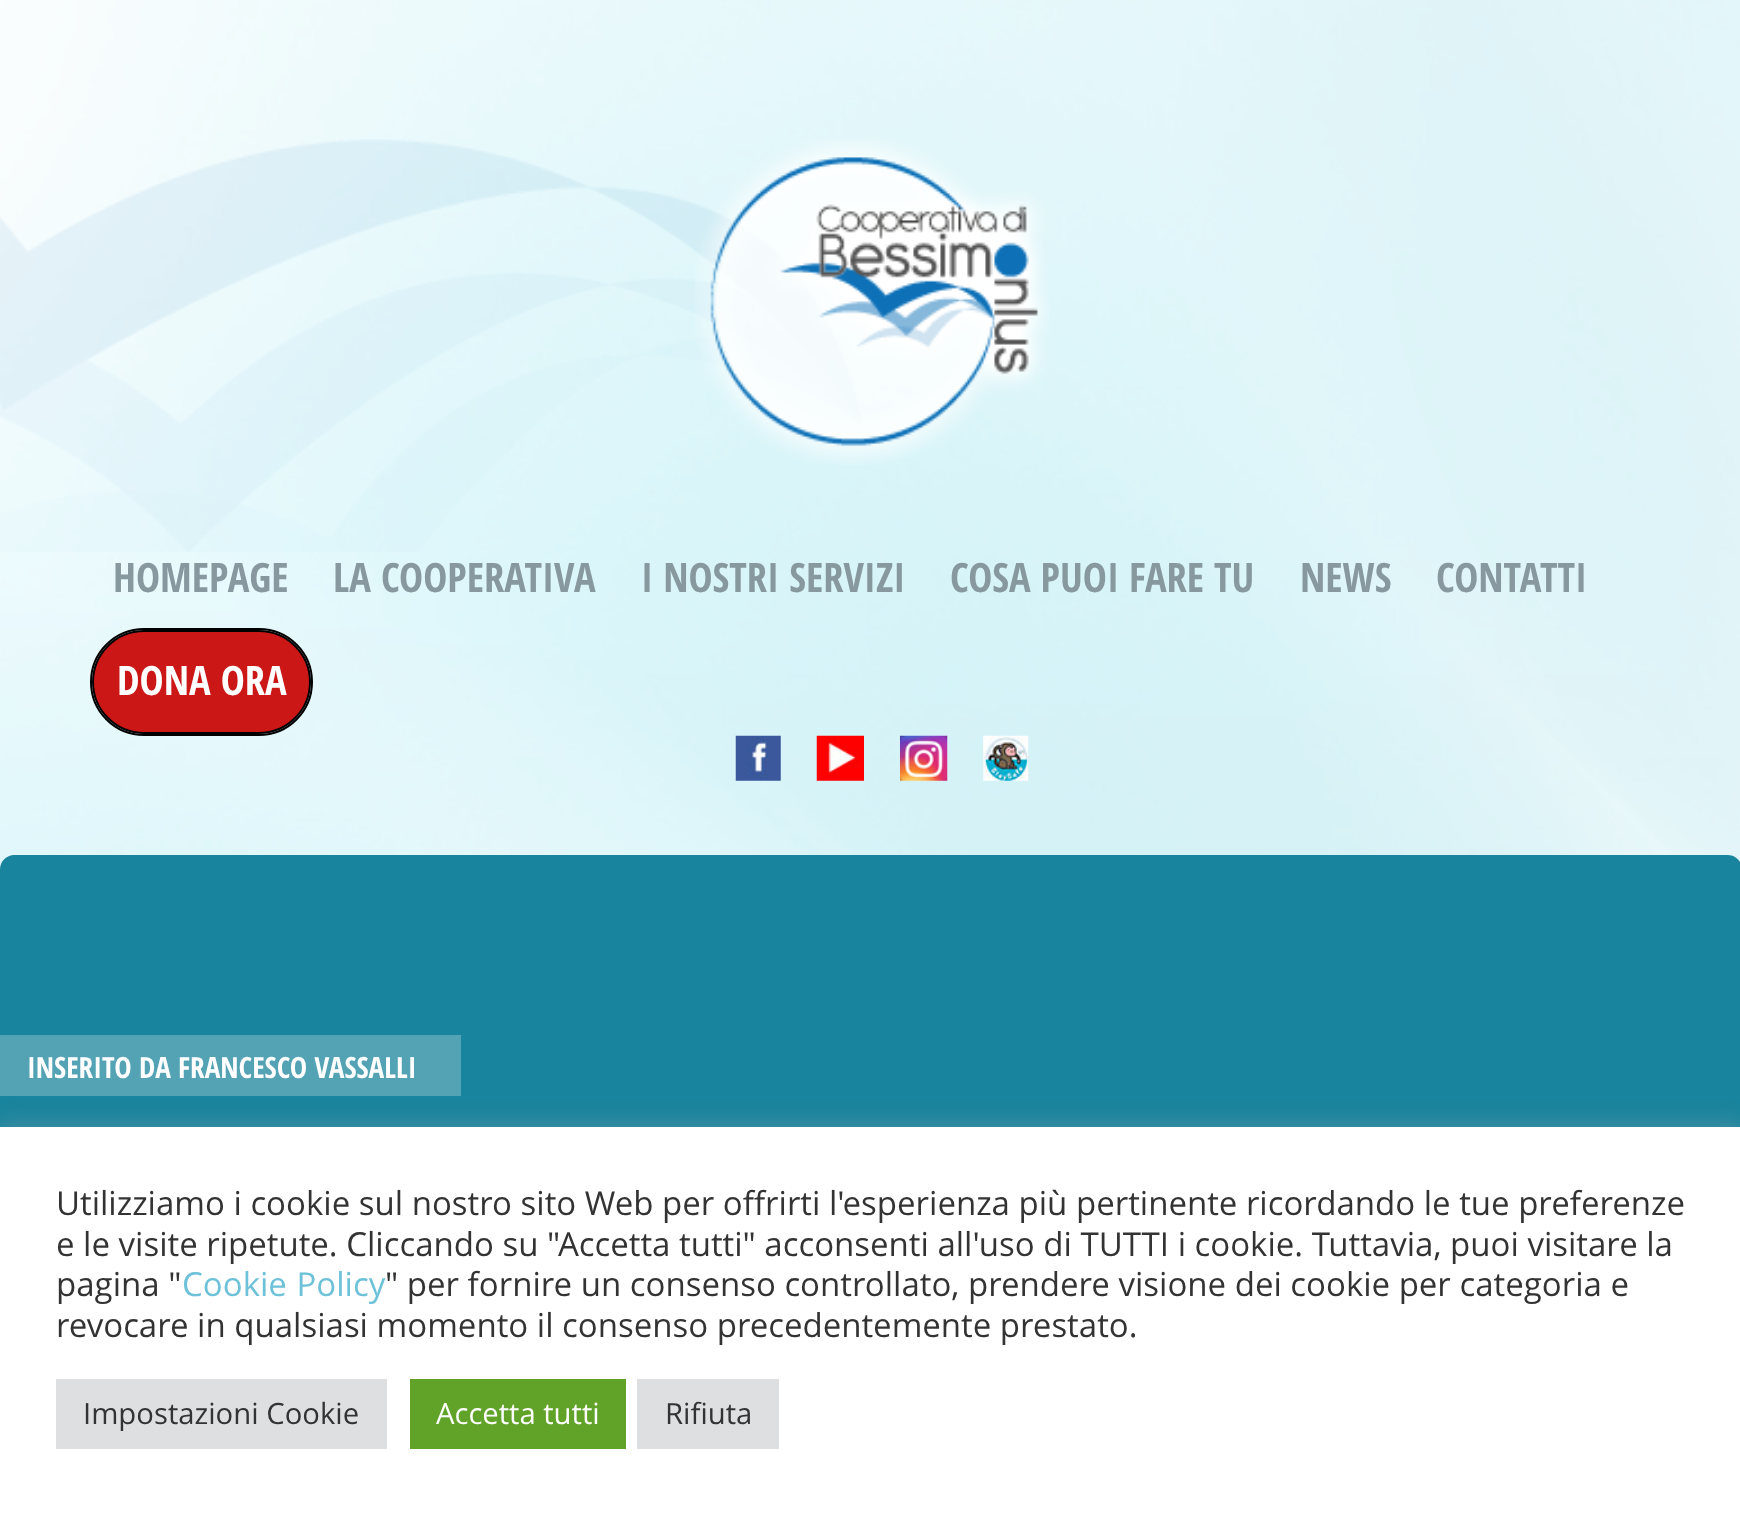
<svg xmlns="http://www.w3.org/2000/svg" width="1740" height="1515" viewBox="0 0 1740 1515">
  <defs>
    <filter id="blur1" x="-50%" y="-200%" width="200%" height="500%"><feGaussianBlur stdDeviation="11"/></filter>
  </defs>
  <rect width="100%" height="100%" fill="#ffffff"/>
  <image x="0" y="0" width="1740" height="869" href="img1.png"/>
  <image x="0" y="139" width="862" height="413" href="img2.png"/>
  <image x="694" y="139" width="356" height="326" href="img3.png"/>
  <text x="113" y="592" font-family="Open Sans Condensed" font-size="40.5" font-weight="bold" fill="#87999e">HOMEPAGE</text>
  <text x="333" y="592" font-family="Open Sans Condensed" font-size="40.5" font-weight="bold" fill="#87999e">LA COOPERATIVA</text>
  <text x="641" y="592" font-family="Open Sans Condensed" font-size="40.5" font-weight="bold" fill="#87999e">I NOSTRI SERVIZI</text>
  <text x="950" y="592" font-family="Open Sans Condensed" font-size="40.5" font-weight="bold" fill="#87999e">COSA PUOI FARE TU</text>
  <text x="1300" y="592" font-family="Open Sans Condensed" font-size="40.5" font-weight="bold" fill="#87999e">NEWS</text>
  <text x="1436" y="592" font-family="Open Sans Condensed" font-size="40.5" font-weight="bold" fill="#87999e">CONTATTI</text>
  <rect x="91" y="629" width="221" height="106" rx="53" fill="none" stroke="#000000" stroke-width="2"/>
  <rect x="93" y="631" width="217" height="102" rx="51" fill="#cc1717" stroke="#000000" stroke-width="2"/>
  <text x="117" y="695" font-family="Open Sans Condensed" font-size="40.5" font-weight="bold" fill="#ffffff">DONA ORA</text>
  <image x="735" y="735" width="46" height="46" href="img4.png"/>
  <image x="816" y="735" width="48" height="46" href="img5.png"/>
  <image x="900" y="735" width="48" height="46" href="img6.png"/>
  <image x="983" y="735" width="46" height="46" href="img7.png"/>
  <path d="M14 855H1728C1735.5 855 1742 861.5 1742 869V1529H0V869C0 861.5 6.5 855 14 855Z" fill="#ffffff"/>
  <path d="M14 855H1728C1735.5 855 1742 861.5 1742 869V1208H0V869C0 861.5 6.5 855 14 855Z" fill="#007792" fill-opacity="0.9"/>
  <rect x="0" y="1035" width="461" height="61" fill="#53a3b5"/>
  <text x="27" y="1078" font-family="Open Sans Condensed" font-size="29.25" font-weight="bold" fill="#ffffff">INSERITO DA FRANCESCO VASSALLI</text>
  <rect x="0" y="1125" width="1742" height="389" fill="#acabab" fill-opacity="0.3" filter="url(#blur1)"/>
  <rect x="0" y="1127" width="1740" height="388" fill="#ffffff"/>
  <text x="56" y="1215" font-family="Open Sans" font-size="33" fill="#333333">Utilizziamo i cookie sul nostro sito Web per offrirti l'esperienza più pertinente ricordando le tue preferenze</text>
  <text x="56" y="1256" font-family="Open Sans" font-size="33" fill="#333333">e le visite ripetute. Cliccando su "Accetta tutti" acconsenti all'uso di TUTTI i cookie. Tuttavia, puoi visitare la</text>
  <text x="56" y="1296" font-family="Open Sans" font-size="33" fill="#333333">pagina "</text>
  <text x="182" y="1296" word-spacing="1" font-family="Open Sans" font-size="33" fill="#6dc1d8">Cookie Policy</text>
  <text x="385" y="1296" font-family="Open Sans" font-size="33" fill="#333333">" per fornire un consenso controllato, prendere visione dei cookie per categoria e</text>
  <text x="56" y="1337" font-family="Open Sans" font-size="33" fill="#333333">revocare in qualsiasi momento il consenso precedentemente prestato.</text>
  <rect x="56" y="1379" width="331" height="70" fill="#dedfe0"/>
  <text x="83" y="1424" font-family="Open Sans" font-size="29.25" fill="#333333">Impostazioni Cookie</text>
  <rect x="410" y="1379" width="216" height="70" fill="#61a229"/>
  <text x="436" y="1424" font-family="Open Sans" font-size="29.25" fill="#ffffff">Accetta tutti</text>
  <rect x="637" y="1379" width="142" height="70" fill="#dedfe0"/>
  <text x="665" y="1424" font-family="Open Sans" font-size="29.25" fill="#333333">Rifiuta</text>
</svg>
